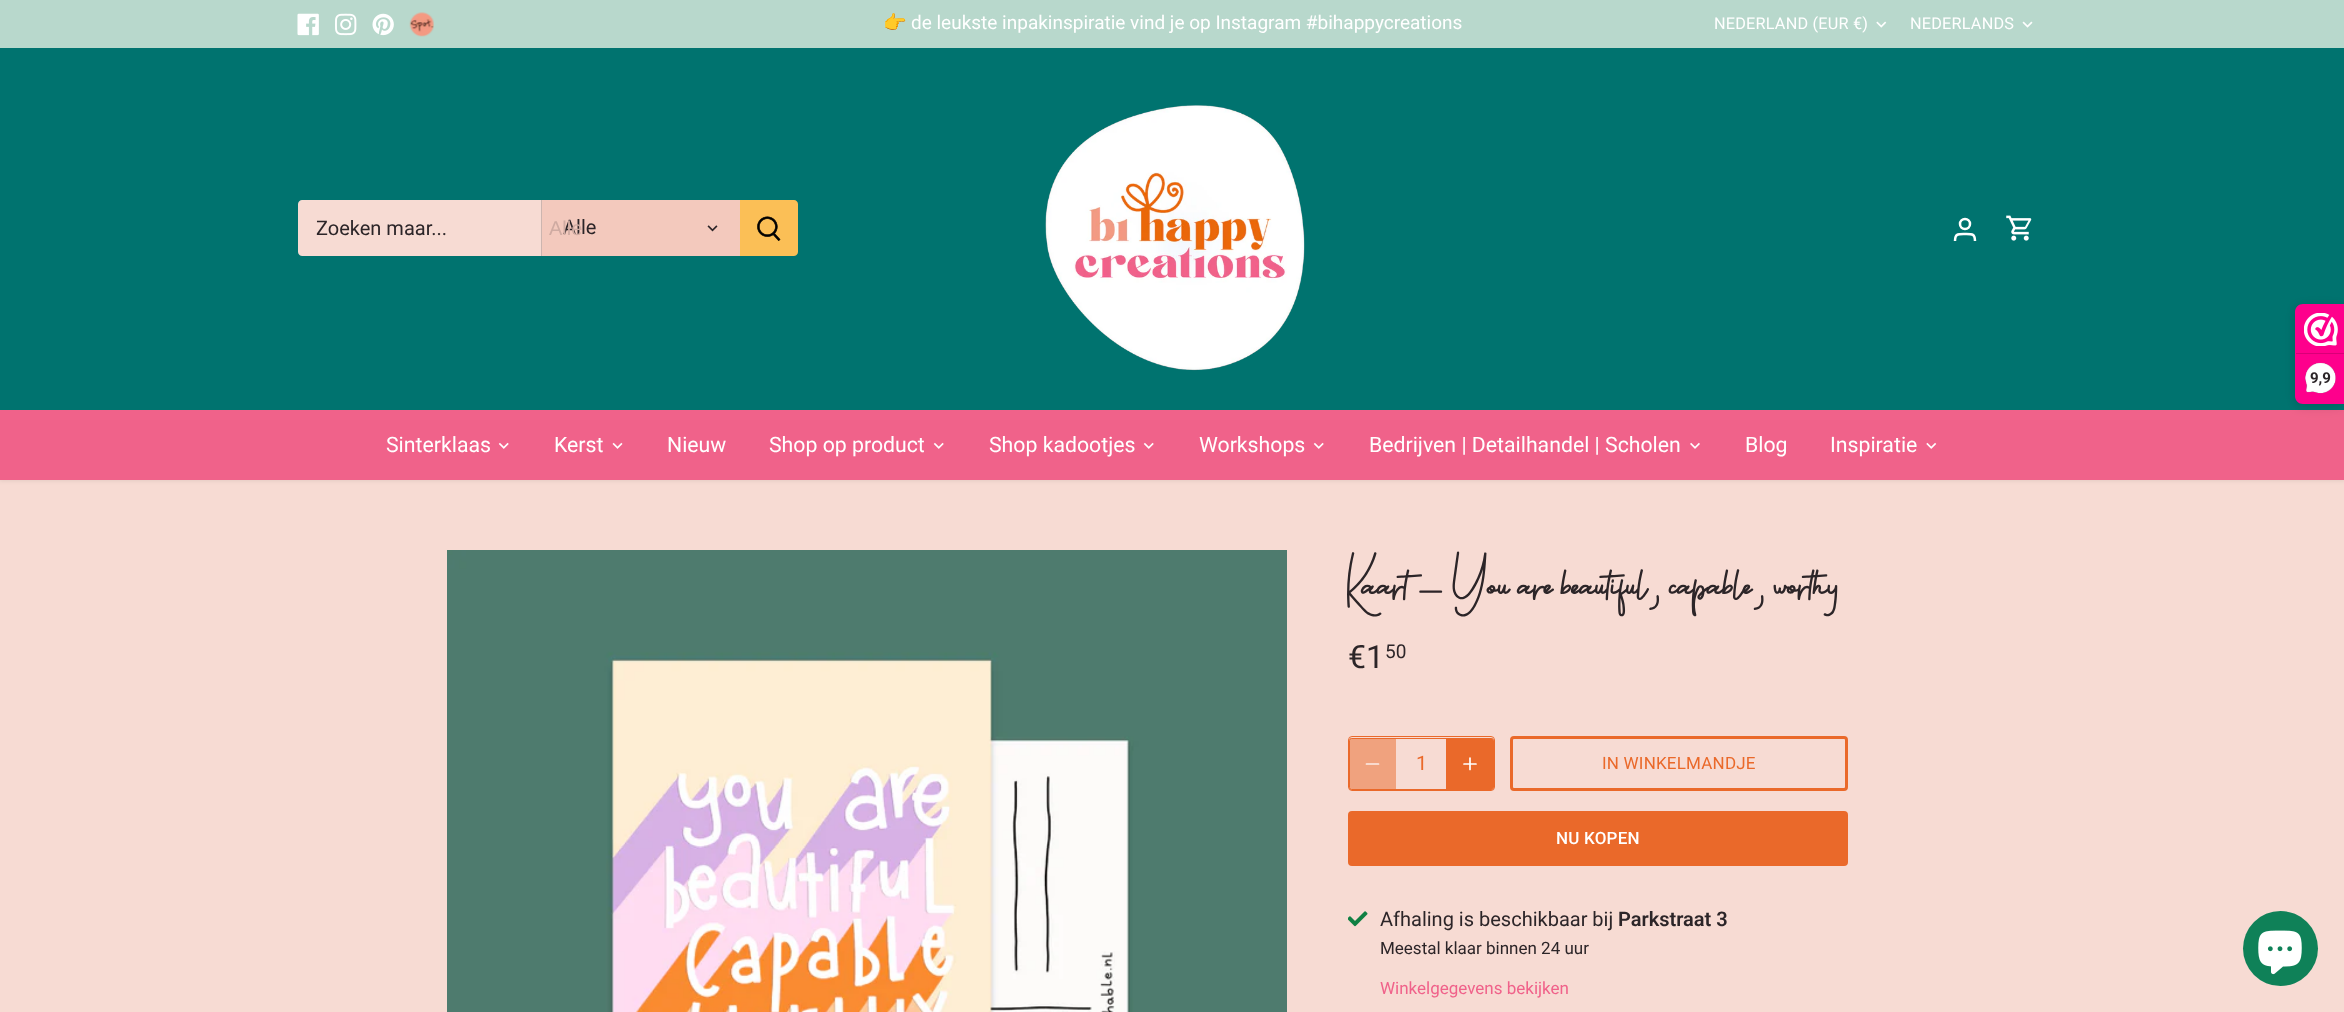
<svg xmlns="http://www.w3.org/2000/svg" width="2344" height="1012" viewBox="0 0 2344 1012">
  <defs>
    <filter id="blur1" x="-50%" y="-200%" width="200%" height="500%"><feGaussianBlur stdDeviation="2"/></filter>
    <filter id="blur2" x="-50%" y="-200%" width="200%" height="500%"><feGaussianBlur stdDeviation="6"/></filter>
  </defs>
  <rect width="100%" height="100%" fill="#f7dbd3"/>
  <rect x="-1" y="46" width="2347" height="435" fill="#000000" fill-opacity="0.08" filter="url(#blur1)"/>
  <rect x="0" y="0" width="2344" height="48" fill="#b8d8cc"/>
  <image x="297" y="13" width="22" height="23" href="img1.png"/>
  <image x="335" y="13" width="22" height="23" href="img2.png"/>
  <image x="372" y="13" width="22" height="23" href="img3.png"/>
  <image x="409" y="12" width="25" height="25" href="img4.png"/>
  <text x="883" y="29" font-family="Noto Color Emoji" font-size="19" fill="#ffffff">👉</text>
  <text x="911" y="29" font-family="Roboto" font-size="19" fill="#ffffff">de leukste inpakinspiratie vind je op Instagram #bihappycreations</text>
  <text x="1714" y="29" font-family="Roboto" font-size="16.25" letter-spacing="0.2" fill="#ffffff">NEDERLAND (EUR €)</text>
  <image x="1876" y="21" width="11" height="7" href="img5.png"/>
  <text x="1910" y="29" font-family="Roboto" font-size="16.25" letter-spacing="0.2" fill="#ffffff">NEDERLANDS</text>
  <image x="2022" y="21" width="11" height="7" href="img6.png"/>
  <rect x="0" y="410" width="2344" height="70" fill="#f0628a"/>
  <rect x="0" y="48" width="2344" height="362" fill="#00736f"/>
  <path d="M302 200H541V256H302C300 256 298 254 298 252V204C298 202 300 200 302 200Z" fill="#f7dbd3"/>
  <text x="316" y="235" font-family="Roboto" font-size="20" fill="#2c2528">Zoeken maar...</text>
  <rect x="542" y="200" width="198" height="56" fill="#f3c9bd"/>
  <rect x="541" y="200" width="1" height="56" fill="#ccb5af"/>
  <text x="563" y="234" font-family="Roboto" font-size="20" fill="#2c2528">Alle</text>
  <text x="549" y="235" font-family="Liberation Sans" font-size="20" fill="#cfaba2">Alle</text>
  <image x="707" y="225" width="11" height="7" href="img7.png"/>
  <path d="M740 200H794C796 200 798 202 798 204V252C798 254 796 256 794 256H740Z" fill="#fbbf56"/>
  <image x="757" y="216" width="24" height="25" href="img8.png"/>
  <image x="1045" y="105" width="260" height="266" href="img9.png"/>
  <circle cx="1965" cy="224" r="5" fill="none" stroke="#ffffff" stroke-width="2.5"/>
  <path d="M1975 241C1975 233.5 1972 234 1965 234C1958 234 1955 233.5 1955 241" fill="none" stroke="#ffffff" stroke-width="2.5"/>
  <image x="2006" y="215" width="26" height="26" href="img10.png"/>
  <text x="386" y="452" font-family="Roboto" font-size="21.25" fill="#ffffff">Sinterklaas</text>
  <image x="498" y="442" width="11" height="7" href="img11.png"/>
  <text x="554" y="452" font-family="Roboto" font-size="21.25" fill="#ffffff">Kerst</text>
  <image x="612" y="442" width="11" height="7" href="img12.png"/>
  <text x="667" y="452" font-family="Roboto" font-size="21.25" fill="#ffffff">Nieuw</text>
  <text x="769" y="452" font-family="Roboto" font-size="21.25" fill="#ffffff">Shop op product</text>
  <image x="933" y="442" width="11" height="7" href="img11.png"/>
  <text x="989" y="452" font-family="Roboto" font-size="21.25" fill="#ffffff">Shop kadootjes</text>
  <image x="1143" y="442" width="11" height="7" href="img11.png"/>
  <text x="1199" y="452" font-family="Roboto" font-size="21.25" fill="#ffffff">Workshops</text>
  <image x="1313" y="442" width="11" height="7" href="img11.png"/>
  <text x="1369" y="452" font-family="Roboto" font-size="21.25" fill="#ffffff">Bedrijven | Detailhandel | Scholen</text>
  <image x="1690" y="442" width="10" height="7" href="img13.png"/>
  <text x="1745" y="452" font-family="Roboto" font-size="21.25" fill="#ffffff">Blog</text>
  <text x="1830" y="452" font-family="Roboto" font-size="21.25" fill="#ffffff">Inspiratie</text>
  <image x="1926" y="442" width="11" height="7" href="img14.png"/>
  <image x="447" y="550" width="840" height="462" href="img15.png"/>
  <text x="1348" y="598" font-family="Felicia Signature" font-size="35" fill="#2c2528">Kaart - You are beautiful, capable, worthy</text>
  <text x="1348" y="668" font-family="Roboto" font-size="32" fill="#2c2528">€1</text>
  <text x="1385" y="658" font-family="Roboto" font-size="19" fill="#2c2528">50</text>
  <rect x="1349.5" y="738.5" width="144" height="51" rx="2" fill="none" stroke="#ea692a"/>
  <rect x="1348.5" y="736.5" width="146" height="54" rx="3.5" fill="none" stroke="#ea692a"/>
  <path d="M1353 738H1396V790H1353C1351 790 1349 788 1349 786V742C1349 740 1351 738 1353 738Z" fill="#ea692a" fill-opacity="0.5"/>
  <path d="M1366.5 764H1378.5" fill="none" stroke="#fbede9" stroke-width="1.7" stroke-linecap="round" stroke-linejoin="round"/>
  <text x="1416" y="770" font-family="Roboto" font-size="20" fill="#ea692a">1</text>
  <path d="M1446 738H1490C1492 738 1494 740 1494 742V786C1494 788 1492 790 1490 790H1446Z" fill="#ea692a"/>
  <path d="M1470 758V769.5M1464 764H1476" fill="none" stroke="#ffffff" stroke-width="1.7" stroke-linecap="round" stroke-linejoin="round"/>
  <rect x="1511.5" y="737.5" width="335" height="52" rx="2.5" fill="none" stroke="#ea692a" stroke-width="3"/>
  <text x="1602" y="769" font-family="Roboto" font-size="17" letter-spacing="0.2" fill="#ea692a">IN WINKELMANDJE</text>
  <rect x="1348" y="811" width="500" height="55" rx="4" fill="#ea692a"/>
  <text x="1556" y="844" font-family="Roboto" font-size="17" font-weight="500" letter-spacing="0.2" fill="#ffffff">NU KOPEN</text>
  <image x="1348" y="911" width="20" height="16" href="img16.png"/>
  <text x="1380" y="926" font-family="Roboto" font-size="20" fill="#2c2528">Afhaling is beschikbaar bij</text>
  <text x="1618" y="926" font-family="Roboto" font-size="20" font-weight="600" fill="#2c2528">Parkstraat 3</text>
  <text x="1380" y="954" font-family="Roboto" font-size="17" fill="#2c2528">Meestal klaar binnen 24 uur</text>
  <text x="1380" y="994" font-family="Roboto" font-size="17" fill="#f0628a">Winkelgegevens bekijken</text>
  <rect x="2295" y="306" width="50" height="100" rx="8" fill="#000000" fill-opacity="0.15" filter="url(#blur2)"/>
  <path d="M2303 304H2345V404H2303C2298.5 404 2295 400.5 2295 396V312C2295 307.5 2298.5 304 2303 304Z" fill="#fe008c"/>
  <image x="2304" y="313" width="34" height="33" href="img17.png"/>
  <rect x="2296" y="353" width="48" height="1" fill="#d80077"/>
  <image x="2305" y="362" width="31" height="32" href="img18.png"/>
  <text x="2310" y="383" font-family="Roboto" font-size="15" font-weight="bold" fill="#2c2528">9,9</text>
  <circle cx="2280.5" cy="948.5" r="37.5" fill="#0f8158"/>
  <image x="2258" y="930" width="44" height="45" href="img19.png"/>
</svg>
